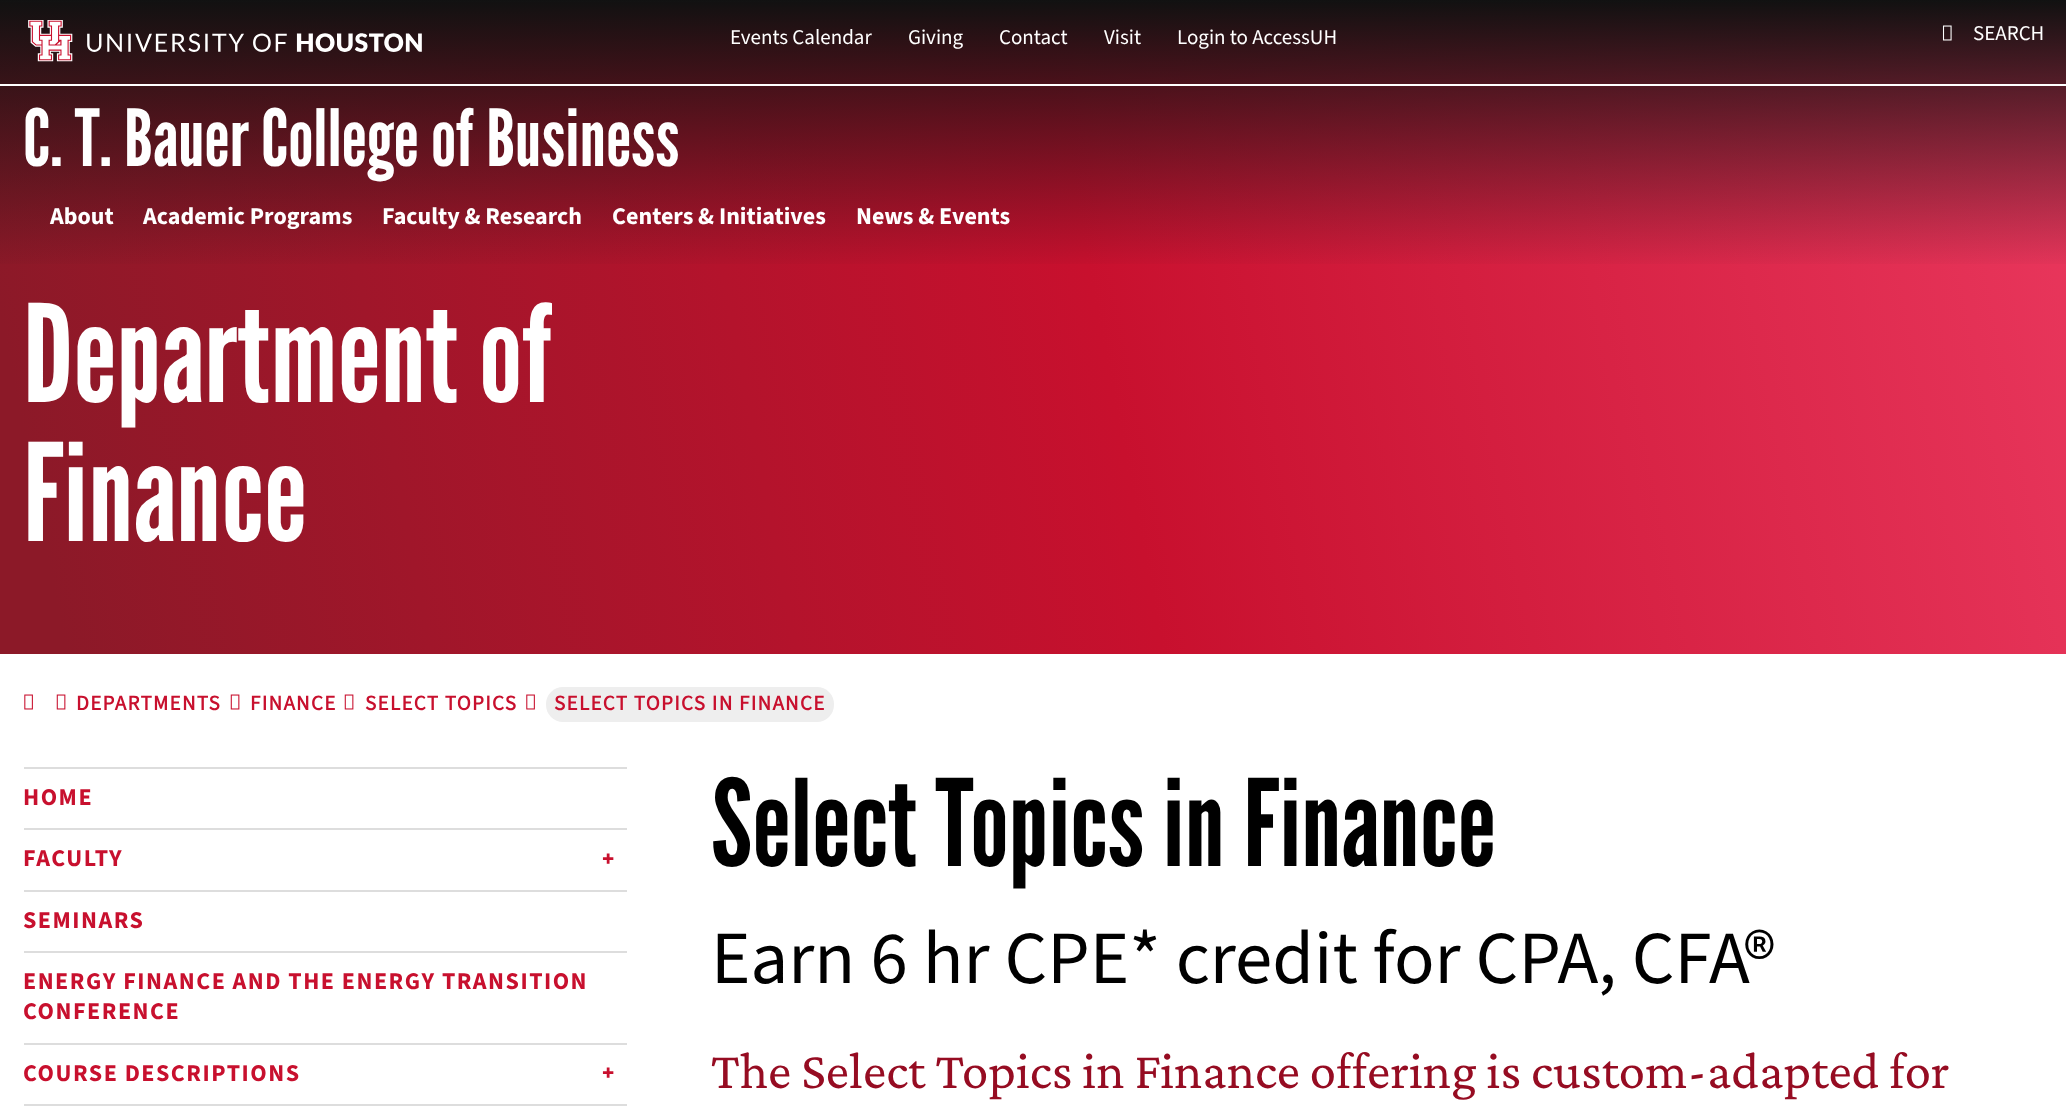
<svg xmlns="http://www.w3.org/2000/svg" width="2066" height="1117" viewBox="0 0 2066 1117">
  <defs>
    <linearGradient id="g1" gradientUnits="userSpaceOnUse" x1="-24" y1="532" x2="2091" y2="122"><stop offset="0.03" stop-color="#8c1928"/><stop offset="0.53" stop-color="#c8102e"/><stop offset="1" stop-color="#e9375d"/></linearGradient>
    <linearGradient id="g2" gradientUnits="userSpaceOnUse" x1="1034" y1="0" x2="1034" y2="270"><stop offset="0" stop-color="#111111"/><stop offset="1" stop-color="#111111" stop-opacity="0"/></linearGradient>
  </defs>
  <rect width="100%" height="100%" fill="#ffffff"/>
  <rect x="0" y="2" width="2066" height="652" fill="url(#g1)"/>
  <rect x="0" y="0" width="2066" height="264" fill="url(#g2)"/>
  <rect x="0" y="84" width="2066" height="2" fill="#ffffff"/>
  <image x="28" y="20" width="394" height="42" href="img1.png"/>
  <text x="730" y="44" font-family="'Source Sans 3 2'" font-size="21" font-weight="200" fill="#ffffff">Events Calendar</text>
  <text x="908" y="44" font-family="'Source Sans 3 2'" font-size="21" font-weight="200" fill="#ffffff">Giving</text>
  <text x="999" y="44" font-family="'Source Sans 3 2'" font-size="21" font-weight="200" fill="#ffffff">Contact</text>
  <text x="1104" y="44" font-family="'Source Sans 3 2'" font-size="21" font-weight="200" fill="#ffffff">Visit</text>
  <text x="1177" y="44" font-family="'Source Sans 3 2'" font-size="21" font-weight="200" fill="#ffffff">Login to AccessUH</text>
  <image x="1942" y="25" width="10" height="16" href="img2.png"/>
  <text x="1973" y="40" font-family="'Source Sans 3 2'" font-size="21" font-weight="200" fill="#ffffff">SEARCH</text>
  <text x="23" y="166" font-family="League Gothic" font-size="78.75" fill="#ffffff">C. T. Bauer College of Business</text>
  <text x="50" y="224" font-family="'Source Sans 3'" font-size="24" font-weight="200" fill="#ffffff">About</text>
  <text x="143" y="224" font-family="'Source Sans 3'" font-size="24" font-weight="200" fill="#ffffff">Academic Programs</text>
  <text x="382" y="224" font-family="'Source Sans 3'" font-size="24" font-weight="200" fill="#ffffff">Faculty &amp; Research</text>
  <text x="612" y="224" font-family="'Source Sans 3'" font-size="24" font-weight="200" fill="#ffffff">Centers &amp; Initiatives</text>
  <text x="856" y="224" font-family="'Source Sans 3'" font-size="24" font-weight="200" fill="#ffffff">News &amp; Events</text>
  <text x="23" y="402" font-family="League Gothic" font-size="135" fill="#ffffff">Department of</text>
  <text x="23" y="541" font-family="League Gothic" font-size="135" fill="#ffffff">Finance</text>
  <image x="24" y="694" width="9" height="16" href="img3.png"/>
  <image x="56" y="694" width="10" height="16" href="img4.png"/>
  <text x="76" y="710" font-family="'Source Sans 3'" font-size="21" font-weight="bold" letter-spacing="1.3" fill="#c8102e">DEPARTMENTS</text>
  <image x="230" y="694" width="10" height="16" href="img4.png"/>
  <text x="250" y="710" font-family="'Source Sans 3'" font-size="21" font-weight="bold" letter-spacing="1.3" fill="#c8102e">FINANCE</text>
  <image x="344" y="694" width="10" height="16" href="img4.png"/>
  <text x="365" y="710" font-family="'Source Sans 3'" font-size="21" font-weight="bold" letter-spacing="1.3" fill="#c8102e">SELECT TOPICS</text>
  <image x="526" y="694" width="9" height="16" href="img5.png"/>
  <rect x="546" y="687" width="288" height="35" rx="17" fill="#eeeeee"/>
  <text x="554" y="710" font-family="'Source Sans 3'" font-size="21" font-weight="bold" letter-spacing="1.3" fill="#c8102e">SELECT TOPICS IN FINANCE</text>
  <rect x="24" y="767" width="603" height="2" fill="#dddddd"/>
  <text x="23" y="805" font-family="'Source Sans 3'" font-size="24" font-weight="200" letter-spacing="1.5" fill="#c8102e">HOME</text>
  <rect x="24" y="828" width="603" height="2" fill="#dddddd"/>
  <text x="23" y="866" font-family="'Source Sans 3'" font-size="24" font-weight="200" letter-spacing="1.5" fill="#c8102e">FACULTY</text>
  <text x="602" y="866" font-family="Noto Sans" font-size="21" font-weight="900" fill="#c8102e">+</text>
  <rect x="24" y="890" width="603" height="2" fill="#dddddd"/>
  <text x="23" y="928" font-family="'Source Sans 3'" font-size="24" font-weight="200" letter-spacing="1.5" fill="#c8102e">SEMINARS</text>
  <rect x="24" y="951" width="603" height="2" fill="#dddddd"/>
  <text x="23" y="989" font-family="'Source Sans 3'" font-size="24" font-weight="200" letter-spacing="1.5" fill="#c8102e">ENERGY FINANCE AND THE ENERGY TRANSITION</text>
  <text x="23" y="1019" font-family="'Source Sans 3'" font-size="24" font-weight="200" letter-spacing="1.5" fill="#c8102e">CONFERENCE</text>
  <rect x="24" y="1043" width="603" height="2" fill="#dddddd"/>
  <text x="23" y="1081" font-family="'Source Sans 3'" font-size="24" font-weight="200" letter-spacing="1.5" fill="#c8102e">COURSE DESCRIPTIONS</text>
  <text x="602" y="1080" font-family="Noto Sans" font-size="21" font-weight="900" fill="#c8102e">+</text>
  <rect x="24" y="1104" width="603" height="2" fill="#dddddd"/>
  <text x="711" y="866" font-family="League Gothic" font-size="120" fill="#000000">Select Topics in Finance</text>
  <text x="711" y="983" font-family="'Source Sans 3 2'" font-size="75" font-weight="200" fill="#000000">Earn 6 hr CPE* credit for CPA, CFA®</text>
  <text x="711" y="1088" font-family="Crimson Pro" font-size="52.8" fill="#960c22">The Select Topics in Finance offering is custom-adapted for</text>
</svg>
